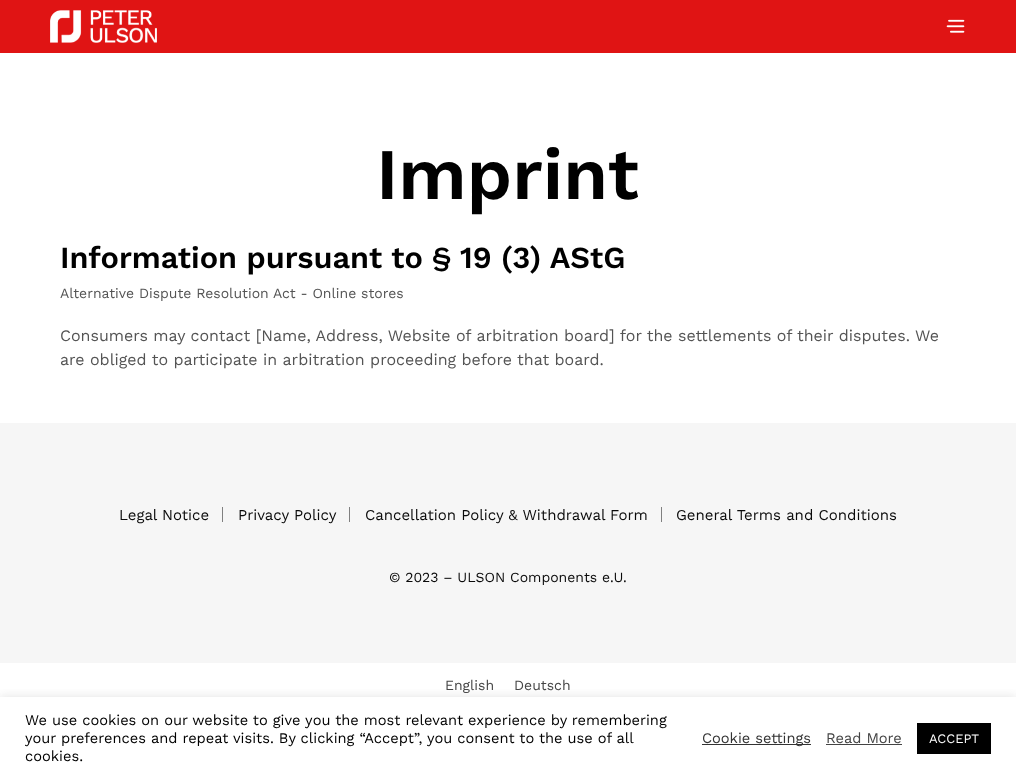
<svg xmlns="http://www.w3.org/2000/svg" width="1016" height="779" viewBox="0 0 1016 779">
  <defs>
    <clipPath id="clip1"><rect x="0" y="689" width="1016" height="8"/></clipPath>
    <filter id="blur1" x="-50%" y="-200%" width="200%" height="500%"><feGaussianBlur stdDeviation="5"/></filter>
  </defs>
  <rect width="100%" height="100%" fill="#ffffff"/>
  <rect x="0" y="0" width="1016" height="53" fill="#e01414"/>
  <image x="50" y="10" width="107" height="33" href="img1.png"/>
  <image x="946" y="19" width="19" height="14" href="img2.png"/>
  <text x="376" y="199" font-family="Work Sans" font-size="72.5" font-weight="600" fill="#000000">Imprint</text>
  <text x="60" y="268" font-family="Work Sans" font-size="30.7" font-weight="600" fill="#000000">Information pursuant to § 19 (3) AStG</text>
  <text x="60" y="298" font-family="Work Sans" font-size="14" fill="#545454">Alternative Dispute Resolution Act - Online stores</text>
  <text x="60" y="341" font-family="Work Sans" font-size="16" fill="#545454">Consumers may contact [Name, Address, Website of arbitration board] for the settlements of their disputes. We</text>
  <text x="60" y="365" font-family="Work Sans" font-size="16" fill="#545454">are obliged to participate in arbitration proceeding before that board.</text>
  <rect x="0" y="423" width="1016" height="240" fill="#f6f6f6"/>
  <text x="119" y="520" font-family="Work Sans" font-size="15" fill="#0a0a0a">Legal Notice</text>
  <rect x="222" y="507" width="1" height="15" fill="#808080"/>
  <text x="238" y="520" font-family="Work Sans" font-size="15" fill="#0a0a0a">Privacy Policy</text>
  <rect x="349" y="507" width="1" height="15" fill="#808080"/>
  <text x="365" y="520" font-family="Work Sans" font-size="15" fill="#0a0a0a">Cancellation Policy &amp; Withdrawal Form</text>
  <rect x="661" y="507" width="1" height="15" fill="#808080"/>
  <text x="676" y="520" font-family="Work Sans" font-size="15" fill="#0a0a0a">General Terms and Conditions</text>
  <text x="389" y="582" font-family="Work Sans" font-size="14" fill="#0a0a0a">© 2023 – ULSON Components e.U.</text>
  <text x="445" y="690" font-family="Work Sans" font-size="14" fill="#444444">English</text>
  <text x="514" y="690" font-family="Work Sans" font-size="14" fill="#444444">Deutsch</text>
  <g clip-path="url(#clip1)">
    <rect x="0" y="696" width="1016" height="82" fill="#acabab" fill-opacity="0.3" filter="url(#blur1)"/>
  </g>
  <text x="25" y="725" font-family="Work Sans" font-size="14.65" fill="#000000">We use cookies on our website to give you the most relevant experience by remembering</text>
  <text x="25" y="743" font-family="Work Sans" font-size="14.65" fill="#000000">your preferences and repeat visits. By clicking “Accept”, you consent to the use of all</text>
  <text x="25" y="761" font-family="Work Sans" font-size="14.65" fill="#000000">cookies.</text>
  <rect x="702" y="744" width="109" height="1" fill="#333333"/>
  <text x="702" y="743" font-family="Work Sans" font-size="14.65" fill="#333333">Cookie settings</text>
  <text x="826" y="743" font-family="Work Sans" font-size="14.65" fill="#444444">Read More</text>
  <rect x="826" y="744" width="76" height="1" fill="#444444"/>
  <rect x="917" y="723" width="74" height="31" fill="#000000"/>
  <text x="929" y="743" font-family="Work Sans" font-size="13" fill="#ffffff">ACCEPT</text>
</svg>
